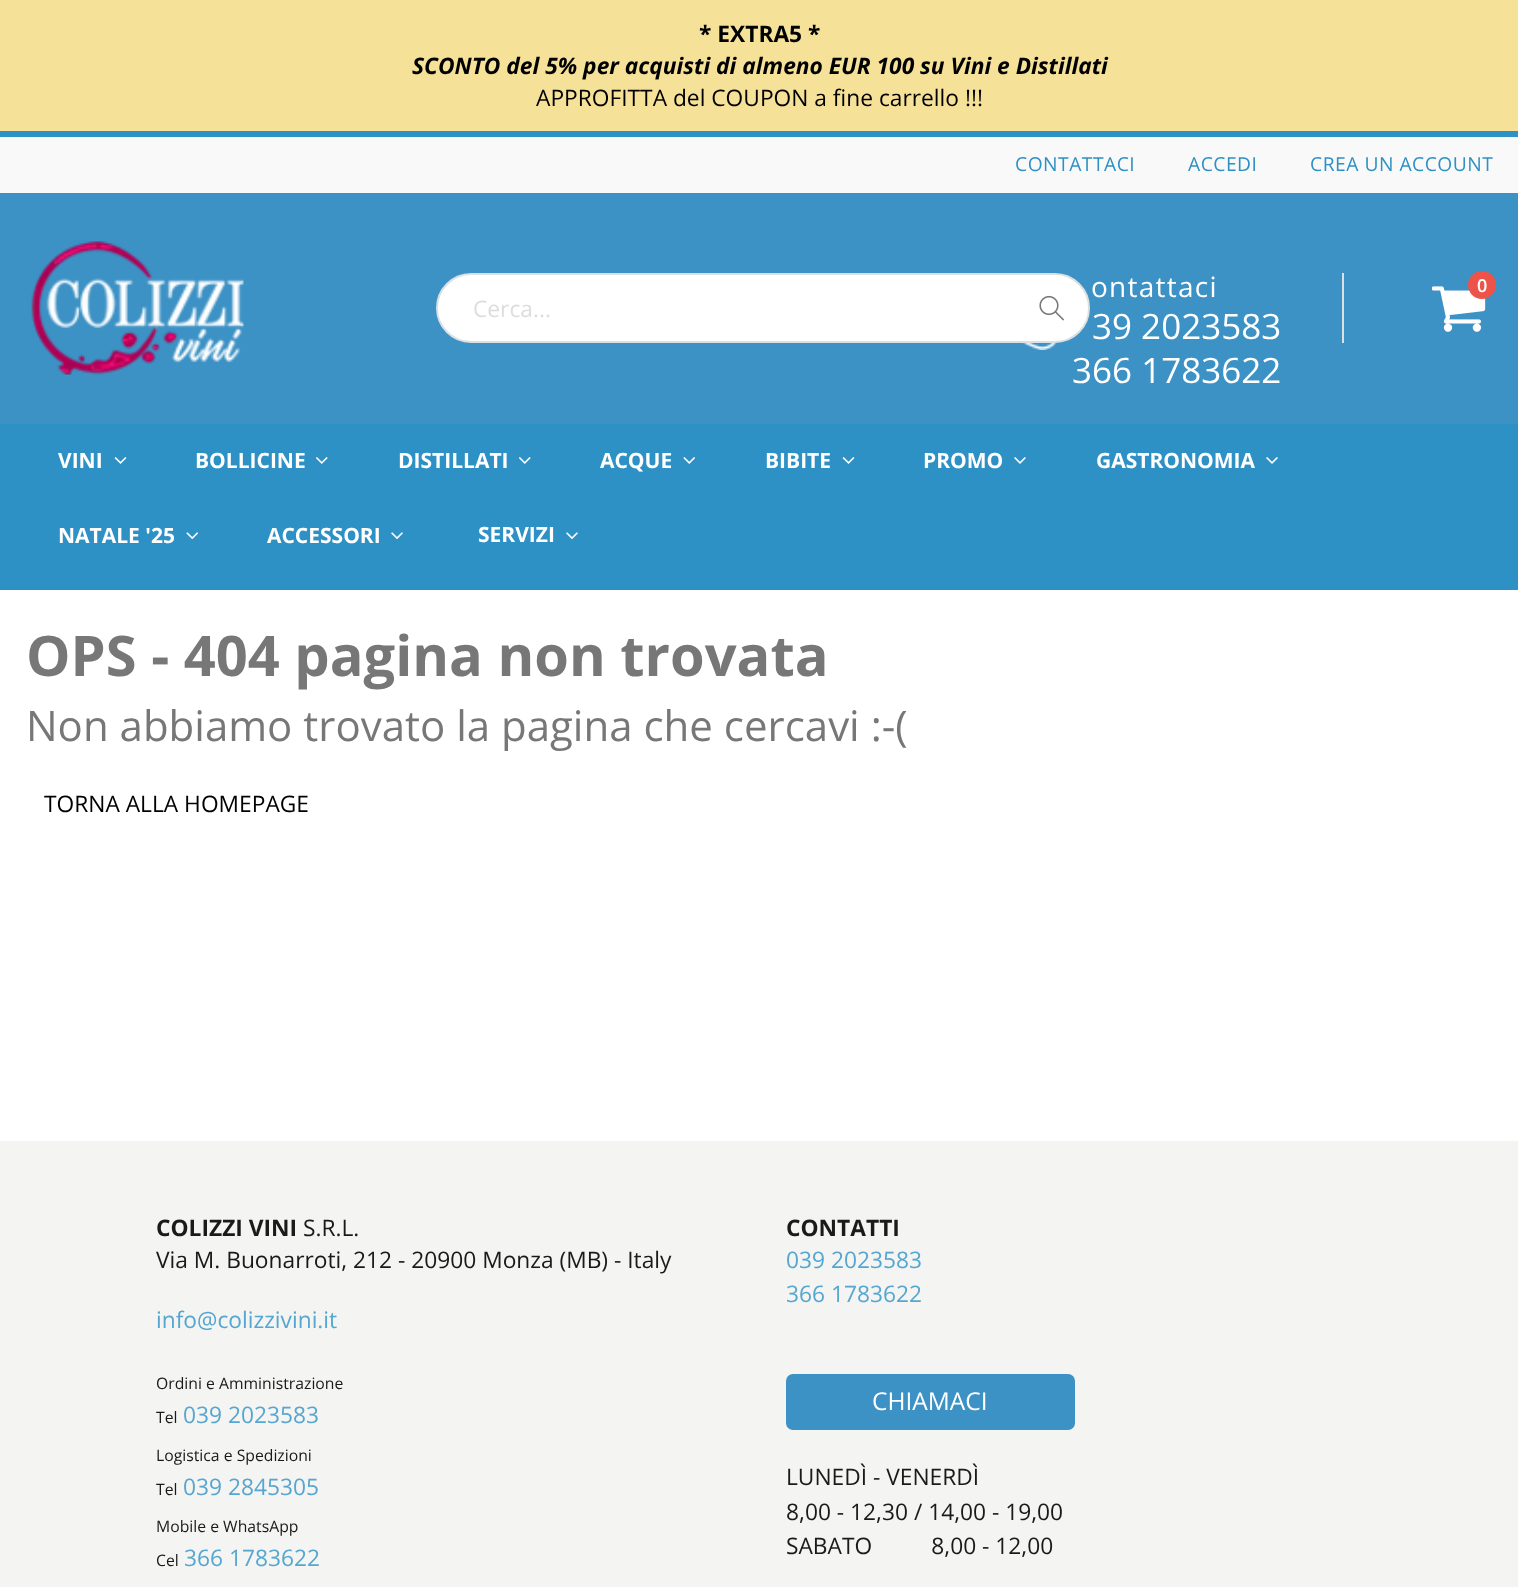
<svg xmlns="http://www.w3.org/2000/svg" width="1518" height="1587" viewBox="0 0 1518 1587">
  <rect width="100%" height="100%" fill="#ffffff"/>
  <rect x="0" y="0" width="1518" height="131" fill="#f6e199"/>
  <text x="699" y="42" font-family="Open Sans" font-size="22.75" font-weight="bold" fill="#000000">* EXTRA5 *</text>
  <text x="412" y="74" font-family="Open Sans" font-size="22.75" font-weight="bold" font-style="italic" fill="#000000">SCONTO del 5% per acquisti di almeno EUR 100 su Vini e Distillati</text>
  <text x="536" y="106" font-family="Open Sans" font-size="22.75" fill="#000000">APPROFITTA del COUPON a fine carrello !!!</text>
  <rect x="0" y="131" width="1518" height="459" fill="#2e91c5"/>
  <rect x="0" y="137" width="1518" height="56" fill="#f9f9f9"/>
  <text x="1015" y="171" font-family="Open Sans" font-size="19.25" letter-spacing="0.5" fill="#2e91c5">CONTATTACI</text>
  <text x="1188" y="171" font-family="Open Sans" font-size="19.25" letter-spacing="0.5" fill="#2e91c5">ACCEDI</text>
  <text x="1310" y="171" font-family="Open Sans" font-size="19.25" letter-spacing="0.5" fill="#2e91c5">CREA UN ACCOUNT</text>
  <rect x="0" y="193" width="1518" height="231" fill="#3c91c5"/>
  <image x="31" y="241" width="213" height="134" href="img1.png"/>
  <rect x="1342" y="273" width="2" height="70" fill="#dde0e2"/>
  <image x="1022" y="340" width="35" height="10" href="img2.png"/>
  <text x="1091" y="297" font-family="Open Sans" font-size="28" letter-spacing="1.25" fill="#ffffff">ontattaci</text>
  <text x="1092" y="339" font-family="Open Sans" font-size="35" fill="#ffffff">39 2023583</text>
  <text x="1072" y="383" font-family="Open Sans" font-size="35" fill="#ffffff">366 1783622</text>
  <image x="1432" y="286" width="54" height="46" href="img3.png"/>
  <circle cx="1482" cy="285" r="14" fill="#ed5348"/>
  <text x="1477" y="292" font-family="Open Sans" font-size="18" font-weight="600" fill="#ffffff">0</text>
  <rect x="437" y="274" width="652" height="68" rx="34" fill="#ffffff" stroke="#dbe0e2" stroke-width="2"/>
  <text x="473" y="317" font-family="Open Sans" font-size="22.75" fill="#dddddd">Cerca...</text>
  <image x="1039" y="295" width="25" height="26" href="img4.png"/>
  <text x="58" y="468" font-family="Open Sans" font-size="21" font-weight="bold" fill="#ffffff">VINI</text>
  <image x="114" y="457" width="13" height="7" href="img5.png"/>
  <text x="195" y="468" font-family="Open Sans" font-size="21" font-weight="bold" fill="#ffffff">BOLLICINE</text>
  <image x="316" y="457" width="12" height="7" href="img6.png"/>
  <text x="398" y="468" font-family="Open Sans" font-size="21" font-weight="bold" fill="#ffffff">DISTILLATI</text>
  <image x="519" y="457" width="12" height="7" href="img6.png"/>
  <text x="600" y="468" font-family="Open Sans" font-size="21" font-weight="bold" fill="#ffffff">ACQUE</text>
  <image x="683" y="457" width="12" height="7" href="img7.png"/>
  <text x="765" y="468" font-family="Open Sans" font-size="21" font-weight="bold" fill="#ffffff">BIBITE</text>
  <image x="842" y="457" width="13" height="7" href="img5.png"/>
  <text x="923" y="468" font-family="Open Sans" font-size="21" font-weight="bold" fill="#ffffff">PROMO</text>
  <image x="1014" y="457" width="12" height="7" href="img8.png"/>
  <text x="1096" y="468" font-family="Open Sans" font-size="21" font-weight="bold" fill="#ffffff">GASTRONOMIA</text>
  <image x="1266" y="457" width="12" height="7" href="img8.png"/>
  <text x="58" y="543" font-family="Open Sans" font-size="21" font-weight="bold" fill="#ffffff">NATALE '25</text>
  <image x="186" y="532" width="12" height="8" href="img9.png"/>
  <text x="267" y="543" font-family="Open Sans" font-size="21" font-weight="bold" fill="#ffffff">ACCESSORI</text>
  <image x="391" y="532" width="12" height="7" href="img10.png"/>
  <text x="478" y="542" font-family="Open Sans" font-size="21" font-weight="bold" fill="#ffffff">SERVIZI</text>
  <image x="566" y="532" width="12" height="7" href="img10.png"/>
  <text x="26" y="676" font-family="Open Sans" font-size="56" font-weight="bold" fill="#777777">OPS - 404 pagina non trovata</text>
  <text x="26" y="741" font-family="Open Sans" font-size="42" fill="#777777">Non abbiamo trovato la pagina che cercavi :-(</text>
  <text x="44" y="812" font-family="Open Sans" font-size="22.75" fill="#000000">TORNA ALLA HOMEPAGE</text>
  <rect x="0" y="1141" width="1518" height="446" fill="#f4f4f2"/>
  <text x="156" y="1236" font-family="Open Sans" font-size="22.75" font-weight="bold" fill="#1a1a1a">COLIZZI VINI</text>
  <text x="303" y="1236" font-family="Open Sans" font-size="22.75" fill="#1a1a1a">S.R.L.</text>
  <text x="156" y="1268" font-family="Open Sans" font-size="22.75" fill="#1a1a1a">Via M. Buonarroti, 212 - 20900 Monza (MB) - Italy</text>
  <text x="156" y="1328" font-family="Open Sans" font-size="22.75" fill="#55a6d0">info@colizzivini.it</text>
  <text x="156" y="1389" font-family="Open Sans" font-size="15.75" fill="#1a1a1a">Ordini e Amministrazione</text>
  <text x="156" y="1423" font-family="Open Sans" font-size="15.75" fill="#1a1a1a">Tel</text>
  <text x="183" y="1423" font-family="Open Sans" font-size="22.75" fill="#55a6d0">039 2023583</text>
  <text x="156" y="1461" font-family="Open Sans" font-size="15.75" fill="#1a1a1a">Logistica e Spedizioni</text>
  <text x="156" y="1495" font-family="Open Sans" font-size="15.75" fill="#1a1a1a">Tel</text>
  <text x="183" y="1495" font-family="Open Sans" font-size="22.75" fill="#55a6d0">039 2845305</text>
  <text x="156" y="1532" font-family="Open Sans" font-size="15.75" fill="#1a1a1a">Mobile e WhatsApp</text>
  <text x="156" y="1566" font-family="Open Sans" font-size="15.75" fill="#1a1a1a">Cel</text>
  <text x="184" y="1566" font-family="Open Sans" font-size="22.75" fill="#55a6d0">366 1783622</text>
  <text x="786" y="1236" font-family="Open Sans" font-size="22.75" font-weight="bold" fill="#1a1a1a">CONTATTI</text>
  <text x="786" y="1268" font-family="Open Sans" font-size="22.75" fill="#55a6d0">039 2023583</text>
  <text x="786" y="1302" font-family="Open Sans" font-size="22.75" fill="#55a6d0">366 1783622</text>
  <rect x="786" y="1374" width="289" height="56" rx="7" fill="#3c91c5"/>
  <text x="872" y="1410" font-family="Open Sans" font-size="24.5" fill="#ffffff">CHIAMACI</text>
  <text x="786" y="1485" font-family="Open Sans" font-size="22.75" fill="#1a1a1a">LUNEDÌ - VENERDÌ</text>
  <text x="786" y="1520" font-family="Open Sans" font-size="22.75" fill="#1a1a1a">8,00 - 12,30 / 14,00 - 19,00</text>
  <text x="786" y="1554" font-family="Open Sans" font-size="22.75" fill="#1a1a1a" xml:space="preserve">SABATO          8,00 - 12,00</text>
</svg>
